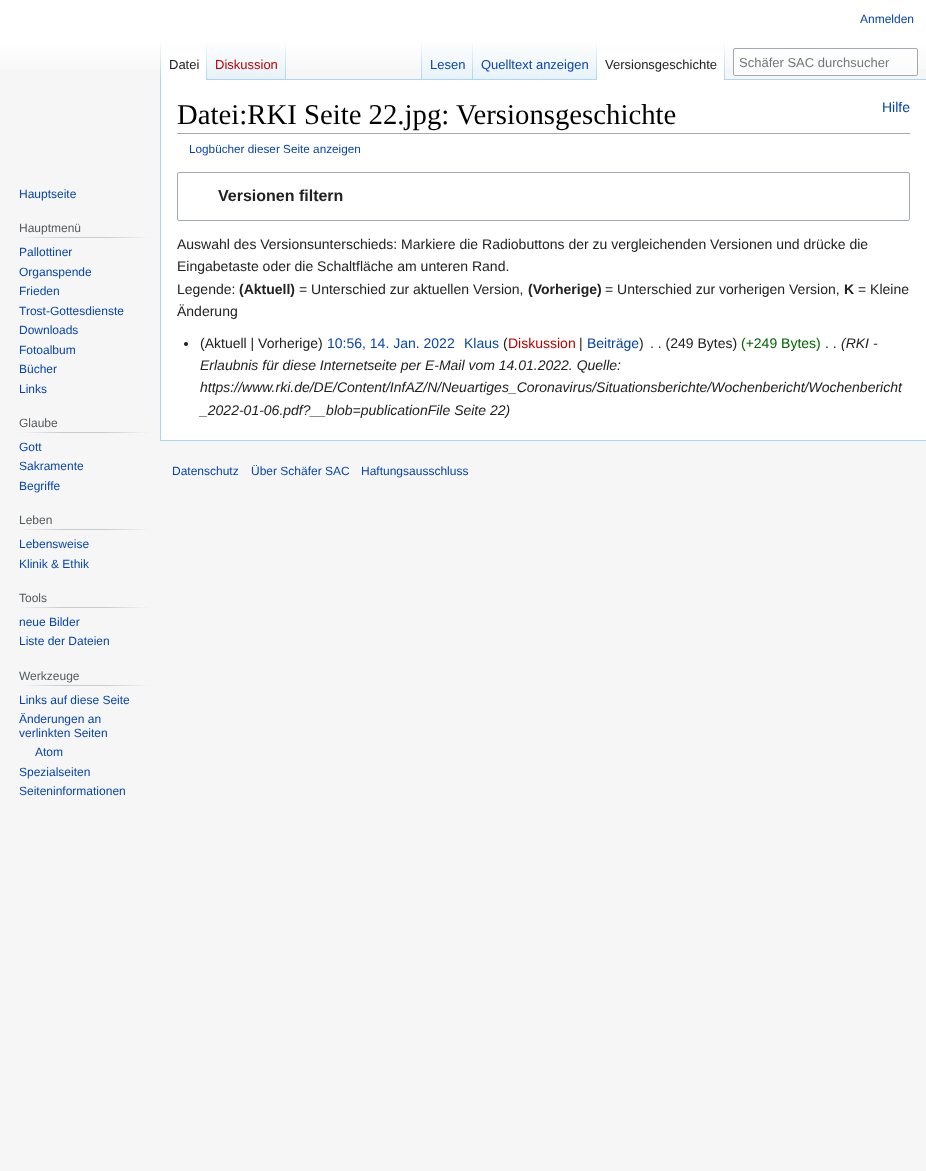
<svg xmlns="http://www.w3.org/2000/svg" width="926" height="1171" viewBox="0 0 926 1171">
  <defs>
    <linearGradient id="g1" gradientUnits="userSpaceOnUse" x1="463" y1="0" x2="463" y2="80"><stop offset="0.5" stop-color="#ffffff"/><stop offset="1" stop-color="#f6f6f6"/></linearGradient>
    <linearGradient id="g2" gradientUnits="userSpaceOnUse" x1="161" y1="40" x2="161" y2="80"><stop offset="0" stop-color="#a7d7f9" stop-opacity="0"/><stop offset="1" stop-color="#a7d7f9"/></linearGradient>
    <linearGradient id="g3" gradientUnits="userSpaceOnUse" x1="207" y1="40" x2="207" y2="80"><stop offset="0" stop-color="#ffffff"/><stop offset="1" stop-color="#a7d7f9"/></linearGradient>
    <linearGradient id="g4" gradientUnits="userSpaceOnUse" x1="247" y1="80" x2="247" y2="40"><stop offset="0" stop-color="#77c1f6"/><stop offset="0.03" stop-color="#e8f2f8"/><stop offset="1" stop-color="#ffffff"/></linearGradient>
    <linearGradient id="g5" gradientUnits="userSpaceOnUse" x1="286" y1="40" x2="286" y2="80"><stop offset="0" stop-color="#a7d7f9" stop-opacity="0"/><stop offset="1" stop-color="#a7d7f9"/></linearGradient>
    <linearGradient id="g6" gradientUnits="userSpaceOnUse" x1="422" y1="40" x2="422" y2="80"><stop offset="0" stop-color="#a7d7f9" stop-opacity="0"/><stop offset="1" stop-color="#a7d7f9"/></linearGradient>
    <linearGradient id="g7" gradientUnits="userSpaceOnUse" x1="448" y1="80" x2="448" y2="40"><stop offset="0" stop-color="#77c1f6"/><stop offset="0.03" stop-color="#e8f2f8"/><stop offset="1" stop-color="#ffffff"/></linearGradient>
    <linearGradient id="g8" gradientUnits="userSpaceOnUse" x1="473" y1="40" x2="473" y2="80"><stop offset="0" stop-color="#a7d7f9" stop-opacity="0"/><stop offset="1" stop-color="#a7d7f9"/></linearGradient>
    <linearGradient id="g9" gradientUnits="userSpaceOnUse" x1="535" y1="80" x2="535" y2="40"><stop offset="0" stop-color="#77c1f6"/><stop offset="0.03" stop-color="#e8f2f8"/><stop offset="1" stop-color="#ffffff"/></linearGradient>
    <linearGradient id="g10" gradientUnits="userSpaceOnUse" x1="597" y1="40" x2="597" y2="80"><stop offset="0" stop-color="#a7d7f9" stop-opacity="0"/><stop offset="1" stop-color="#a7d7f9"/></linearGradient>
    <linearGradient id="g11" gradientUnits="userSpaceOnUse" x1="725" y1="40" x2="725" y2="80"><stop offset="0" stop-color="#ffffff"/><stop offset="1" stop-color="#a7d7f9"/></linearGradient>
    <clipPath id="clip1"><rect x="739" y="55" width="150" height="15"/></clipPath>
    <linearGradient id="g12" gradientUnits="userSpaceOnUse" x1="19" y1="238" x2="150" y2="238"><stop offset="0" stop-color="#f6f6f6"/><stop offset="0.33" stop-color="#c8ccd1"/><stop offset="0.66" stop-color="#c8ccd1"/><stop offset="1" stop-color="#f6f6f6"/></linearGradient>
    <linearGradient id="g13" gradientUnits="userSpaceOnUse" x1="19" y1="433" x2="150" y2="433"><stop offset="0" stop-color="#f6f6f6"/><stop offset="0.33" stop-color="#c8ccd1"/><stop offset="0.66" stop-color="#c8ccd1"/><stop offset="1" stop-color="#f6f6f6"/></linearGradient>
    <linearGradient id="g14" gradientUnits="userSpaceOnUse" x1="19" y1="530" x2="150" y2="530"><stop offset="0" stop-color="#f6f6f6"/><stop offset="0.33" stop-color="#c8ccd1"/><stop offset="0.66" stop-color="#c8ccd1"/><stop offset="1" stop-color="#f6f6f6"/></linearGradient>
    <linearGradient id="g15" gradientUnits="userSpaceOnUse" x1="19" y1="608" x2="150" y2="608"><stop offset="0" stop-color="#f6f6f6"/><stop offset="0.33" stop-color="#c8ccd1"/><stop offset="0.66" stop-color="#c8ccd1"/><stop offset="1" stop-color="#f6f6f6"/></linearGradient>
    <linearGradient id="g16" gradientUnits="userSpaceOnUse" x1="19" y1="686" x2="150" y2="686"><stop offset="0" stop-color="#f6f6f6"/><stop offset="0.33" stop-color="#c8ccd1"/><stop offset="0.66" stop-color="#c8ccd1"/><stop offset="1" stop-color="#f6f6f6"/></linearGradient>
  </defs>
  <rect width="100%" height="100%" fill="#f6f6f6"/>
  <rect x="0" y="0" width="926" height="69" fill="url(#g1)"/>
  <text x="860" y="23" font-family="Liberation Sans" font-size="12" fill="#0645ad">Anmelden</text>
  <rect x="160" y="440" width="766" height="1" fill="#a7d7f9"/>
  <rect x="160" y="79" width="1" height="362" fill="#a7d7f9"/>
  <rect x="160" y="40" width="1" height="40" fill="url(#g2)"/>
  <rect x="161" y="51" width="45" height="29" fill="#ffffff"/>
  <rect x="206" y="40" width="1" height="40" fill="url(#g3)"/>
  <text x="169" y="69" font-family="Liberation Sans" font-size="13" fill="#202122">Datei</text>
  <rect x="207" y="46" width="79" height="34" fill="url(#g4)"/>
  <rect x="285" y="40" width="1" height="40" fill="url(#g5)"/>
  <text x="215" y="69" font-family="Liberation Sans" font-size="13" fill="#ba0000">Diskussion</text>
  <rect x="286" y="79" width="640" height="1" fill="#a7d7f9"/>
  <rect x="421" y="40" width="1" height="40" fill="url(#g6)"/>
  <rect x="422" y="46" width="51" height="33" fill="url(#g7)"/>
  <rect x="472" y="40" width="1" height="40" fill="url(#g8)"/>
  <text x="430" y="69" font-family="Liberation Sans" font-size="13" fill="#0645ad">Lesen</text>
  <rect x="473" y="46" width="124" height="33" fill="url(#g9)"/>
  <rect x="596" y="40" width="1" height="40" fill="url(#g10)"/>
  <text x="481" y="69" font-family="Liberation Sans" font-size="13" fill="#0645ad">Quelltext anzeigen</text>
  <rect x="597" y="51" width="127" height="29" fill="#ffffff"/>
  <rect x="724" y="40" width="1" height="40" fill="url(#g11)"/>
  <text x="605" y="69" font-family="Liberation Sans" font-size="13" fill="#202122">Versionsgeschichte</text>
  <rect x="733.5" y="48.5" width="184" height="27" rx="1.5" fill="#ffffff" fill-opacity="0.5" stroke="#a2a9b1"/>
  <g clip-path="url(#clip1)">
    <text x="739" y="67" font-family="Liberation Sans" font-size="13" fill="#72777d">Schäfer SAC durchsuchen</text>
  </g>
  <text x="19" y="198" font-family="Liberation Sans" font-size="12" fill="#0645ad">Hauptseite</text>
  <rect x="19" y="237" width="131" height="1" fill="url(#g12)"/>
  <text x="19" y="232" font-family="Liberation Sans" font-size="12" fill="#54595d">Hauptmenü</text>
  <text x="19" y="256" font-family="Liberation Sans" font-size="12" fill="#0645ad">Pallottiner</text>
  <text x="19" y="276" font-family="Liberation Sans" font-size="12" fill="#0645ad">Organspende</text>
  <text x="19" y="295" font-family="Liberation Sans" font-size="12" fill="#0645ad">Frieden</text>
  <text x="19" y="315" font-family="Liberation Sans" font-size="12" fill="#0645ad">Trost-Gottesdienste</text>
  <text x="19" y="334" font-family="Liberation Sans" font-size="12" fill="#0645ad">Downloads</text>
  <text x="19" y="354" font-family="Liberation Sans" font-size="12" fill="#0645ad">Fotoalbum</text>
  <text x="19" y="373" font-family="Liberation Sans" font-size="12" fill="#0645ad">Bücher</text>
  <text x="19" y="393" font-family="Liberation Sans" font-size="12" fill="#0645ad">Links</text>
  <rect x="19" y="432" width="131" height="1" fill="url(#g13)"/>
  <text x="19" y="427" font-family="Liberation Sans" font-size="12" fill="#54595d">Glaube</text>
  <text x="19" y="451" font-family="Liberation Sans" font-size="12" fill="#0645ad">Gott</text>
  <text x="19" y="470" font-family="Liberation Sans" font-size="12" fill="#0645ad">Sakramente</text>
  <text x="19" y="490" font-family="Liberation Sans" font-size="12" fill="#0645ad">Begriffe</text>
  <rect x="19" y="529" width="131" height="1" fill="url(#g14)"/>
  <text x="19" y="524" font-family="Liberation Sans" font-size="12" fill="#54595d">Leben</text>
  <text x="19" y="548" font-family="Liberation Sans" font-size="12" fill="#0645ad">Lebensweise</text>
  <text x="19" y="568" font-family="Liberation Sans" font-size="12" fill="#0645ad">Klinik &amp; Ethik</text>
  <rect x="19" y="607" width="131" height="1" fill="url(#g15)"/>
  <text x="19" y="602" font-family="Liberation Sans" font-size="12" fill="#54595d">Tools</text>
  <text x="19" y="626" font-family="Liberation Sans" font-size="12" fill="#0645ad">neue Bilder</text>
  <text x="19" y="645" font-family="Liberation Sans" font-size="12" fill="#0645ad">Liste der Dateien</text>
  <rect x="19" y="685" width="131" height="1" fill="url(#g16)"/>
  <text x="19" y="680" font-family="Liberation Sans" font-size="12" fill="#54595d">Werkzeuge</text>
  <text x="19" y="704" font-family="Liberation Sans" font-size="12" fill="#0645ad">Links auf diese Seite</text>
  <text x="19" y="723" font-family="Liberation Sans" font-size="12" fill="#0645ad">Änderungen an</text>
  <text x="19" y="737" font-family="Liberation Sans" font-size="12" fill="#0645ad">verlinkten Seiten</text>
  <text x="35" y="756" font-family="Liberation Sans" font-size="12" fill="#0645ad">Atom</text>
  <text x="19" y="776" font-family="Liberation Sans" font-size="12" fill="#0645ad">Spezialseiten</text>
  <text x="19" y="795" font-family="Liberation Sans" font-size="12" fill="#0645ad">Seiteninformationen</text>
  <rect x="161" y="80" width="765" height="360" fill="#ffffff"/>
  <rect x="177" y="133" width="733" height="1" fill="#a2a9b1"/>
  <text x="177" y="124" font-family="Liberation Serif" font-size="28.75" fill="#000000">Datei:RKI Seite 22.jpg: Versionsgeschichte</text>
  <text x="882" y="112" font-family="Liberation Sans" font-size="14" fill="#0645ad">Hilfe</text>
  <text x="189" y="153" font-family="Liberation Sans" font-size="11.75" fill="#0645ad">Logbücher dieser Seite anzeigen</text>
  <rect x="177.5" y="172.5" width="732" height="48" rx="1.5" fill="none" stroke="#a2a9b1"/>
  <text x="218" y="201" font-family="Liberation Sans" font-size="16" font-weight="bold" fill="#202122">Versionen filtern</text>
  <text x="177" y="249" font-family="Liberation Sans" font-size="14" fill="#202122">Auswahl des Versionsunterschieds: Markiere die Radiobuttons der zu vergleichenden Versionen und drücke die</text>
  <text x="177" y="271" font-family="Liberation Sans" font-size="14" fill="#202122">Eingabetaste oder die Schaltfläche am unteren Rand.</text>
  <text x="177" y="294" font-family="Liberation Sans" font-size="14" fill="#202122">Legende:</text>
  <text x="239" y="294" font-family="Liberation Sans" font-size="14" font-weight="bold" fill="#202122">(Aktuell)</text>
  <text x="299" y="294" font-family="Liberation Sans" font-size="14" fill="#202122">= Unterschied zur aktuellen Version,</text>
  <text x="528" y="294" font-family="Liberation Sans" font-size="14" font-weight="bold" fill="#202122">(Vorherige)</text>
  <text x="605" y="294" font-family="Liberation Sans" font-size="14" fill="#202122">= Unterschied zur vorherigen Version,</text>
  <text x="844" y="294" font-family="Liberation Sans" font-size="14" font-weight="bold" fill="#202122">K</text>
  <text x="858" y="294" font-family="Liberation Sans" font-size="14" fill="#202122">= Kleine</text>
  <text x="177" y="316" font-family="Liberation Sans" font-size="14" fill="#202122">Änderung</text>
  <circle cx="186" cy="344" r="2" fill="#202122"/>
  <text x="200" y="348" font-family="Liberation Sans" font-size="14" fill="#202122">(Aktuell | Vorherige)</text>
  <text x="327" y="348" font-family="Liberation Sans" font-size="14" fill="#0645ad">10:56, 14. Jan. 2022</text>
  <text x="464" y="348" font-family="Liberation Sans" font-size="14" fill="#0645ad">Klaus</text>
  <text x="503" y="348" font-family="Liberation Sans" font-size="14" fill="#202122">(</text>
  <text x="508" y="348" font-family="Liberation Sans" font-size="14" fill="#ba0000">Diskussion</text>
  <text x="579" y="348" font-family="Liberation Sans" font-size="14" fill="#202122">|</text>
  <text x="587" y="348" font-family="Liberation Sans" font-size="14" fill="#0645ad">Beiträge</text>
  <text x="639" y="348" font-family="Liberation Sans" font-size="14" fill="#202122">)</text>
  <text x="650" y="348" font-family="Liberation Sans" font-size="14" fill="#202122">. . (249 Bytes)</text>
  <text x="741" y="348" font-family="Liberation Sans" font-size="14" fill="#006400">(+249 Bytes)</text>
  <text x="841" y="348" font-family="Liberation Sans" font-size="14" font-style="italic" fill="#202122">(RKI -</text>
  <text x="825" y="348" font-family="Liberation Sans" font-size="14" fill="#202122">. .</text>
  <text x="200" y="370" font-family="Liberation Sans" font-size="14" font-style="italic" fill="#202122">Erlaubnis für diese Internetseite per E-Mail vom 14.01.2022. Quelle:</text>
  <text x="200" y="392" font-family="Liberation Sans" font-size="14" font-style="italic" fill="#202122">https://www.rki.de/DE/Content/InfAZ/N/Neuartiges_Coronavirus/Situationsberichte/Wochenbericht/Wochenbericht</text>
  <text x="200" y="415" font-family="Liberation Sans" font-size="14" font-style="italic" fill="#202122">_2022-01-06.pdf?__blob=publicationFile Seite 22)</text>
  <text x="172" y="475" font-family="Liberation Sans" font-size="12" fill="#0645ad">Datenschutz</text>
  <text x="251" y="475" font-family="Liberation Sans" font-size="12" fill="#0645ad">Über Schäfer SAC</text>
  <text x="361" y="475" font-family="Liberation Sans" font-size="12" fill="#0645ad">Haftungsausschluss</text>
</svg>
